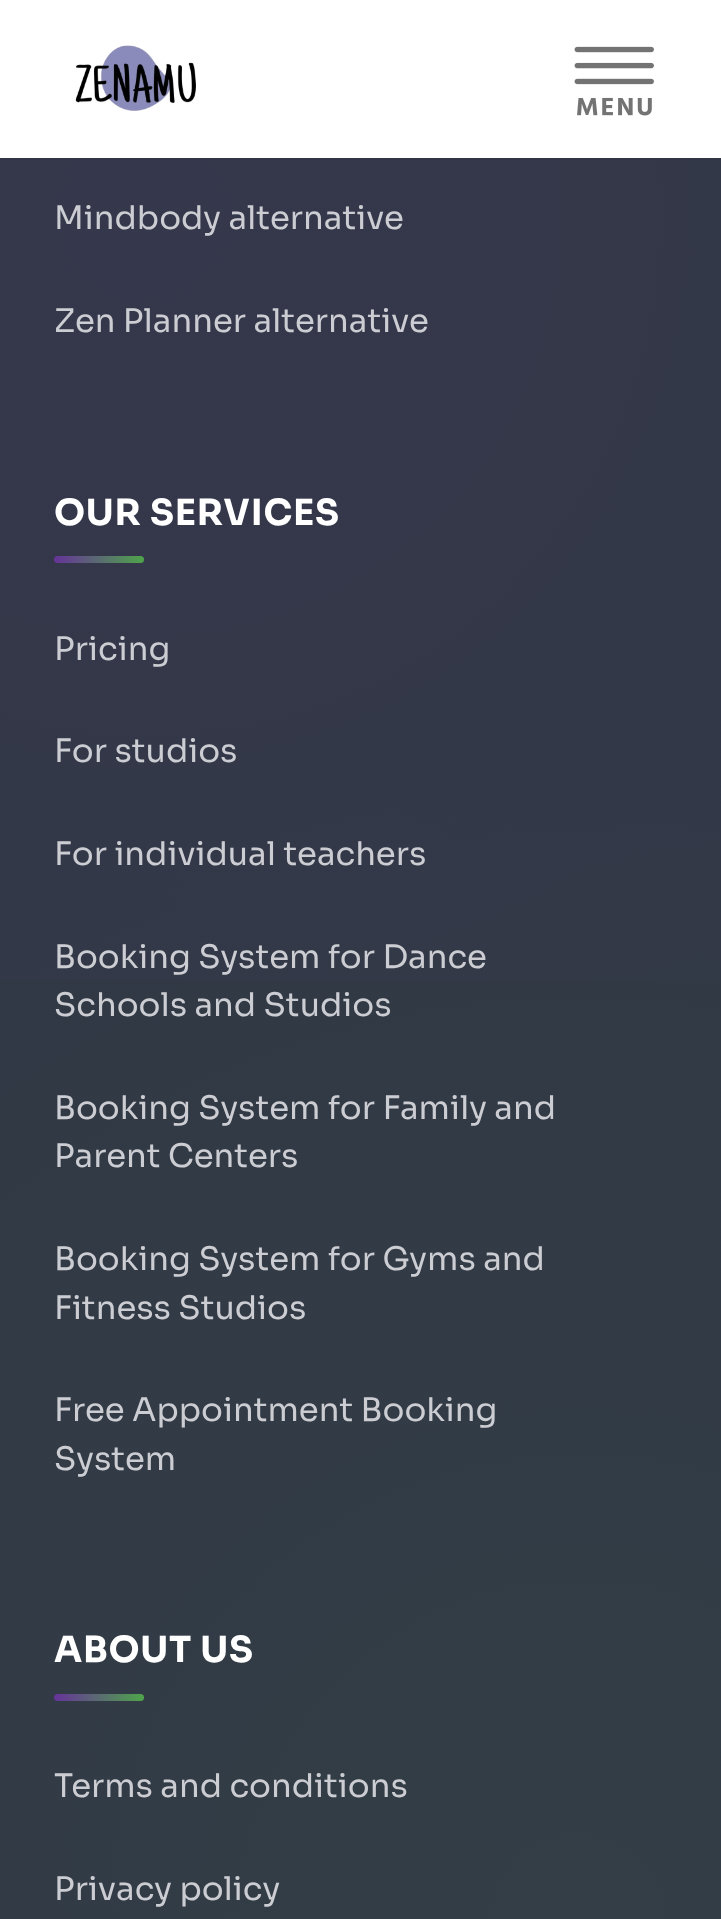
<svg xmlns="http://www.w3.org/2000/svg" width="721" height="1919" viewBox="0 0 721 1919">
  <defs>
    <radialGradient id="g1" gradientUnits="userSpaceOnUse" cx="578" cy="1924" r="3037"><stop offset="0" stop-color="#333e46"/><stop offset="0.4" stop-color="#313845"/></radialGradient>
    <radialGradient id="g2" gradientUnits="userSpaceOnUse" cx="144" cy="220" r="3037"><stop offset="0" stop-color="#663399" stop-opacity="0.08"/><stop offset="0.4" stop-color="#663399" stop-opacity="0"/></radialGradient>
    <linearGradient id="g3" gradientUnits="userSpaceOnUse" x1="54" y1="559" x2="144" y2="559"><stop offset="0" stop-color="#663399"/><stop offset="1" stop-color="#4ea44a"/></linearGradient>
    <linearGradient id="g4" gradientUnits="userSpaceOnUse" x1="54" y1="1698" x2="144" y2="1698"><stop offset="0" stop-color="#663399"/><stop offset="1" stop-color="#4ea44a"/></linearGradient>
  </defs>
  <rect width="100%" height="100%" fill="#ffffff"/>
  <rect x="0" y="158" width="721" height="1761" fill="url(#g1)"/>
  <rect x="0" y="158" width="721" height="823" fill="url(#g2)"/>
  <rect x="0" y="158" width="721" height="2" fill="#000000" fill-opacity="0.05"/>
  <image x="75" y="45" width="121" height="66" href="img1.png"/>
  <image x="574" y="46" width="80" height="70" href="img2.png"/>
  <text x="54" y="229" font-family="Sora" font-size="32.4" fill="#cccdd2">Mindbody alternative</text>
  <text x="54" y="332" font-family="Sora" font-size="32.4" fill="#cccdd2">Zen Planner alternative</text>
  <text x="54" y="525" font-family="Sora" font-size="36" font-weight="bold" letter-spacing="0.75" fill="#ffffff">OUR SERVICES</text>
  <rect x="54" y="556" width="90" height="7" rx="3.5" fill="url(#g3)"/>
  <text x="54" y="660" font-family="Sora" font-size="32.4" fill="#cccdd2">Pricing</text>
  <text x="54" y="762" font-family="Sora" font-size="32.4" fill="#cccdd2">For studios</text>
  <text x="54" y="865" font-family="Sora" font-size="32.4" fill="#cccdd2">For individual teachers</text>
  <text x="54" y="968" font-family="Sora" font-size="32.4" fill="#cccdd2">Booking System for Dance</text>
  <text x="54" y="1016" font-family="Sora" font-size="32.4" fill="#cccdd2">Schools and Studios</text>
  <text x="54" y="1119" font-family="Sora" font-size="32.4" fill="#cccdd2">Booking System for Family and</text>
  <text x="54" y="1167" font-family="Sora" font-size="32.4" fill="#cccdd2">Parent Centers</text>
  <text x="54" y="1270" font-family="Sora" font-size="32.4" fill="#cccdd2">Booking System for Gyms and</text>
  <text x="54" y="1319" font-family="Sora" font-size="32.4" fill="#cccdd2">Fitness Studios</text>
  <text x="54" y="1421" font-family="Sora" font-size="32.4" fill="#cccdd2">Free Appointment Booking</text>
  <text x="54" y="1470" font-family="Sora" font-size="32.4" fill="#cccdd2">System</text>
  <text x="54" y="1662" font-family="Sora" font-size="36" font-weight="bold" letter-spacing="0.75" fill="#ffffff">ABOUT US</text>
  <rect x="54" y="1694" width="90" height="7" rx="3.5" fill="url(#g4)"/>
  <text x="54" y="1797" font-family="Sora" font-size="32.4" fill="#cccdd2">Terms and conditions</text>
  <text x="54" y="1900" font-family="Sora" font-size="32.4" fill="#cccdd2">Privacy policy</text>
</svg>
